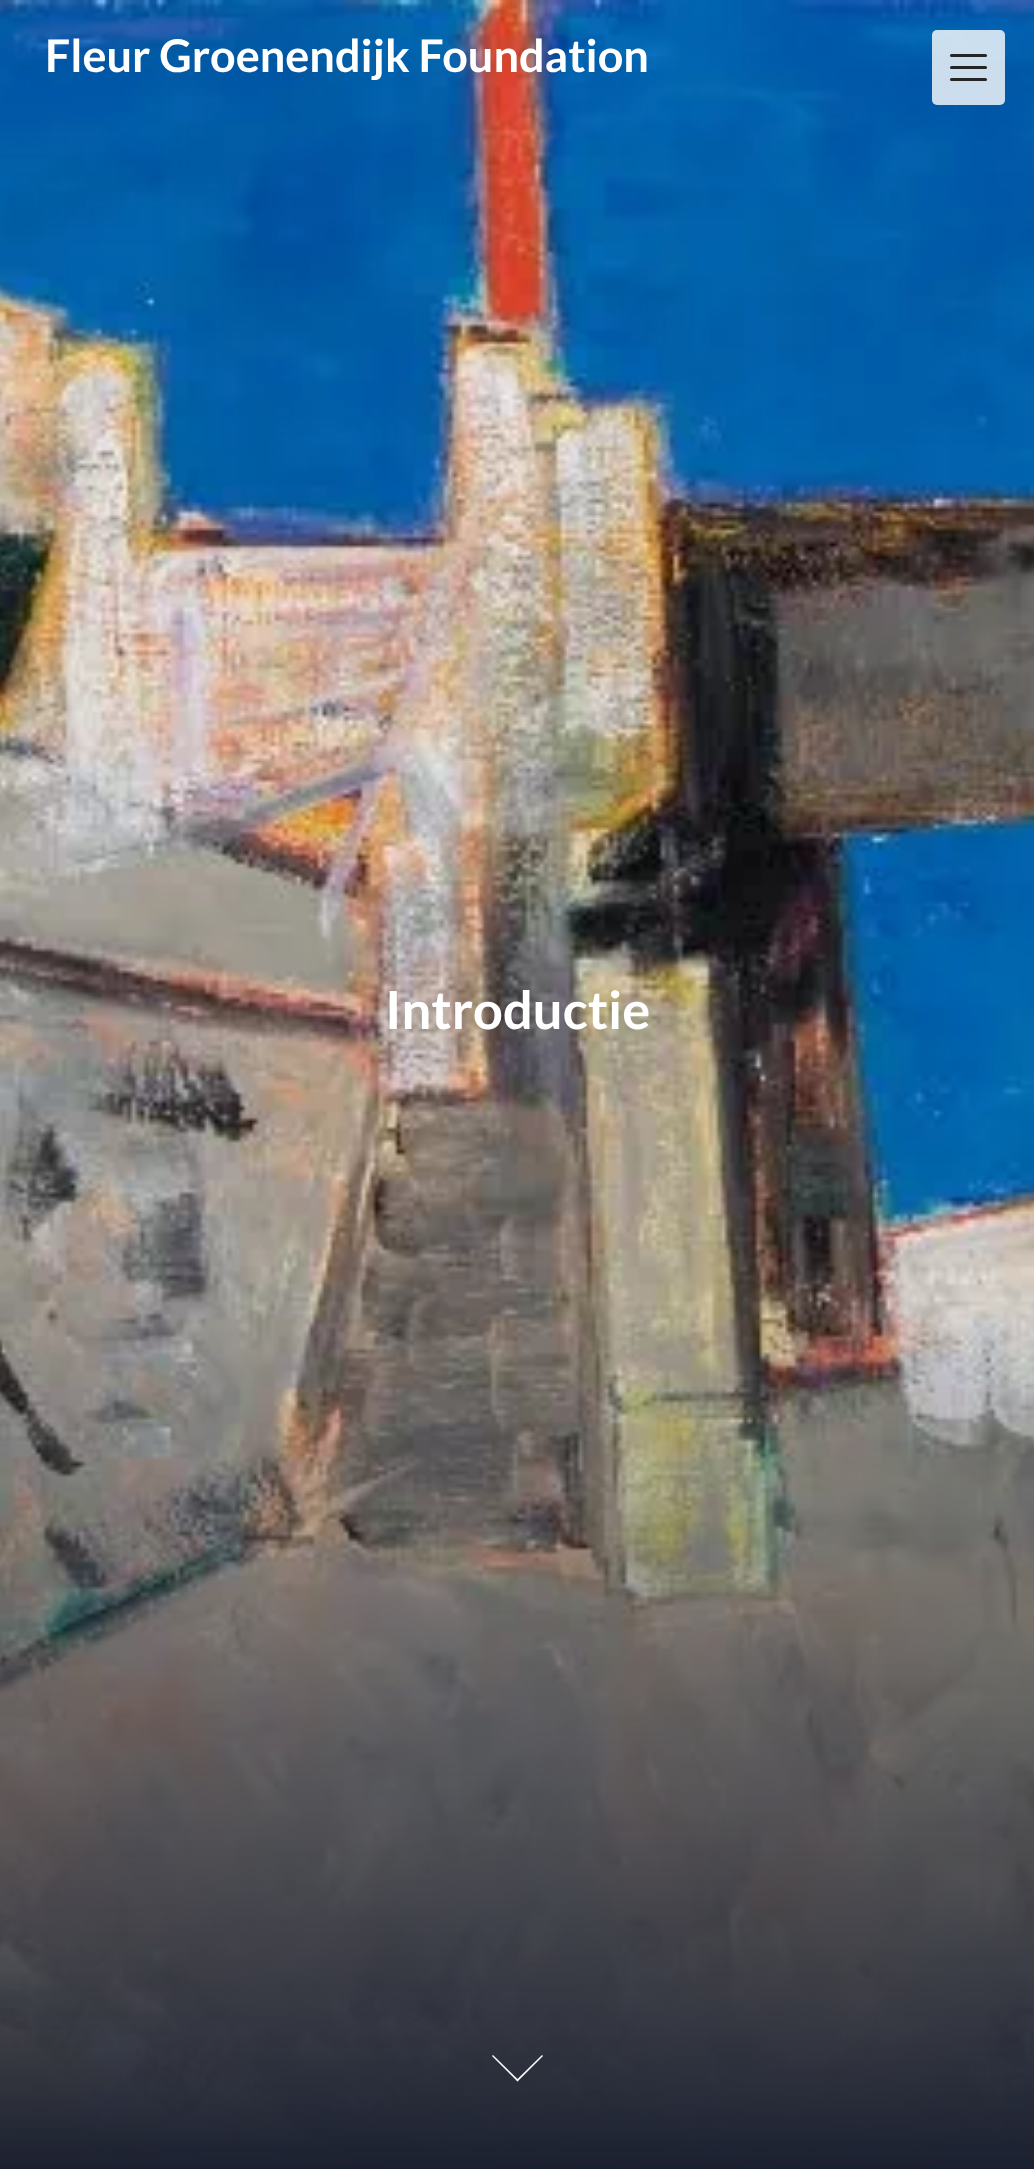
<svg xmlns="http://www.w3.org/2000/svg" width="1034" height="2169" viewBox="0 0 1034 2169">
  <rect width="100%" height="100%" fill="#ffffff"/>
  <image x="0" y="0" width="1034" height="2169" href="img1.png"/>
  <text x="45" y="72" font-family="Lato" font-size="45" font-weight="bold" fill="#ffffff">Fleur Groenendijk Foundation</text>
  <rect x="932" y="30" width="73" height="75" rx="5" fill="#ffffff" fill-opacity="0.8"/>
  <rect x="950" y="66" width="37" height="3" rx="1.5" fill="#252525"/>
  <rect x="950" y="54" width="37" height="3" rx="1.5" fill="#252525"/>
  <rect x="950" y="78" width="37" height="3" rx="1.5" fill="#252525"/>
  <text x="385" y="1029" font-family="Lato" font-size="52.5" font-weight="bold" fill="#ffffff">Introductie</text>
  <path d="M516.5 2080L542 2055L543 2056L517.5 2081.5Z" fill="#ffffff"/>
  <path d="M492 2056L493 2055L518.5 2080L517.5 2081.5Z" fill="#ffffff"/>
</svg>
